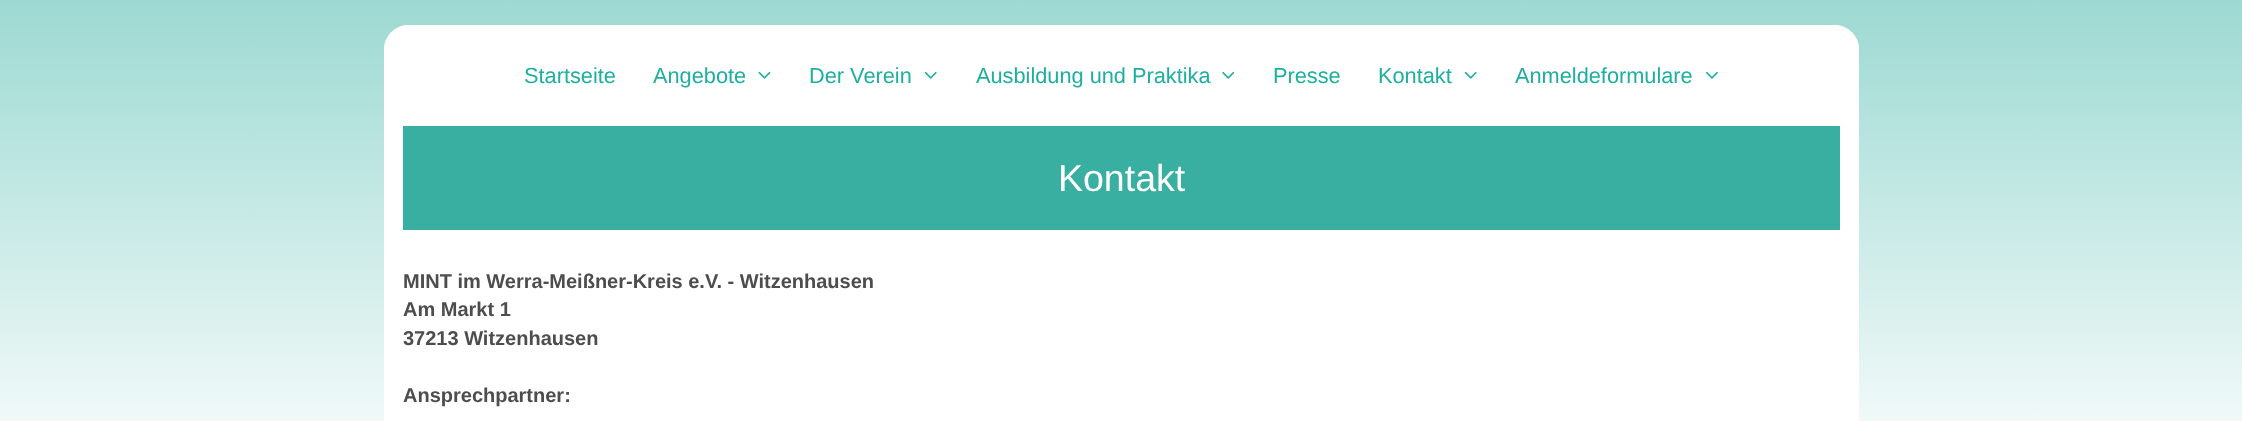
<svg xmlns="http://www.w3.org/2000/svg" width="2242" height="421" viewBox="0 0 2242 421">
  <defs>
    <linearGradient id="g1" gradientUnits="userSpaceOnUse" x1="1121" y1="0" x2="1121" y2="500"><stop offset="0" stop-color="#9dd9d2"/><stop offset="1" stop-color="#ffffff"/></linearGradient>
  </defs>
  <rect width="100%" height="100%" fill="#ffffff"/>
  <rect x="0" y="0" width="2242" height="421" fill="url(#g1)"/>
  <path d="M409 25H1834C1848 25 1859 36 1859 50V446H384V50C384 36 395 25 409 25Z" fill="#ffffff"/>
  <path d="M409 25H1834C1848 25 1859 36 1859 50V126H384V50C384 36 395 25 409 25Z" fill="#ffffff"/>
  <text x="524" y="83" font-family="Liberation Sans" font-size="21.75" fill="#1fafa0">Startseite</text>
  <text x="653" y="83" font-family="Liberation Sans" font-size="21.75" fill="#1fafa0">Angebote</text>
  <image x="758" y="71" width="13" height="8" href="img1.png"/>
  <text x="809" y="83" font-family="Liberation Sans" font-size="21.75" fill="#1fafa0">Der Verein</text>
  <image x="924" y="71" width="13" height="8" href="img2.png"/>
  <text x="976" y="83" font-family="Liberation Sans" font-size="21.75" fill="#1fafa0">Ausbildung und Praktika</text>
  <image x="1222" y="71" width="13" height="8" href="img3.png"/>
  <text x="1273" y="83" font-family="Liberation Sans" font-size="21.75" fill="#1fafa0">Presse</text>
  <text x="1378" y="83" font-family="Liberation Sans" font-size="21.75" fill="#1fafa0">Kontakt</text>
  <image x="1464" y="71" width="13" height="8" href="img2.png"/>
  <text x="1515" y="83" font-family="Liberation Sans" font-size="21.75" fill="#1fafa0">Anmeldeformulare</text>
  <image x="1706" y="71" width="12" height="8" href="img4.png"/>
  <rect x="403" y="126" width="1437" height="104" fill="#38afa0"/>
  <text x="1058" y="191" font-family="Liberation Sans" font-size="37.5" fill="#ffffff">Kontakt</text>
  <text x="403" y="288" font-family="Liberation Sans" font-size="20" font-weight="bold" fill="#4d4d4d">MINT im Werra-Meißner-Kreis e.V. - Witzenhausen</text>
  <text x="403" y="316" font-family="Liberation Sans" font-size="20" font-weight="bold" fill="#4d4d4d">Am Markt 1</text>
  <text x="403" y="345" font-family="Liberation Sans" font-size="20" font-weight="bold" fill="#4d4d4d">37213 Witzenhausen</text>
  <text x="403" y="402" font-family="Liberation Sans" font-size="20" font-weight="bold" fill="#4d4d4d">Ansprechpartner:</text>
</svg>
